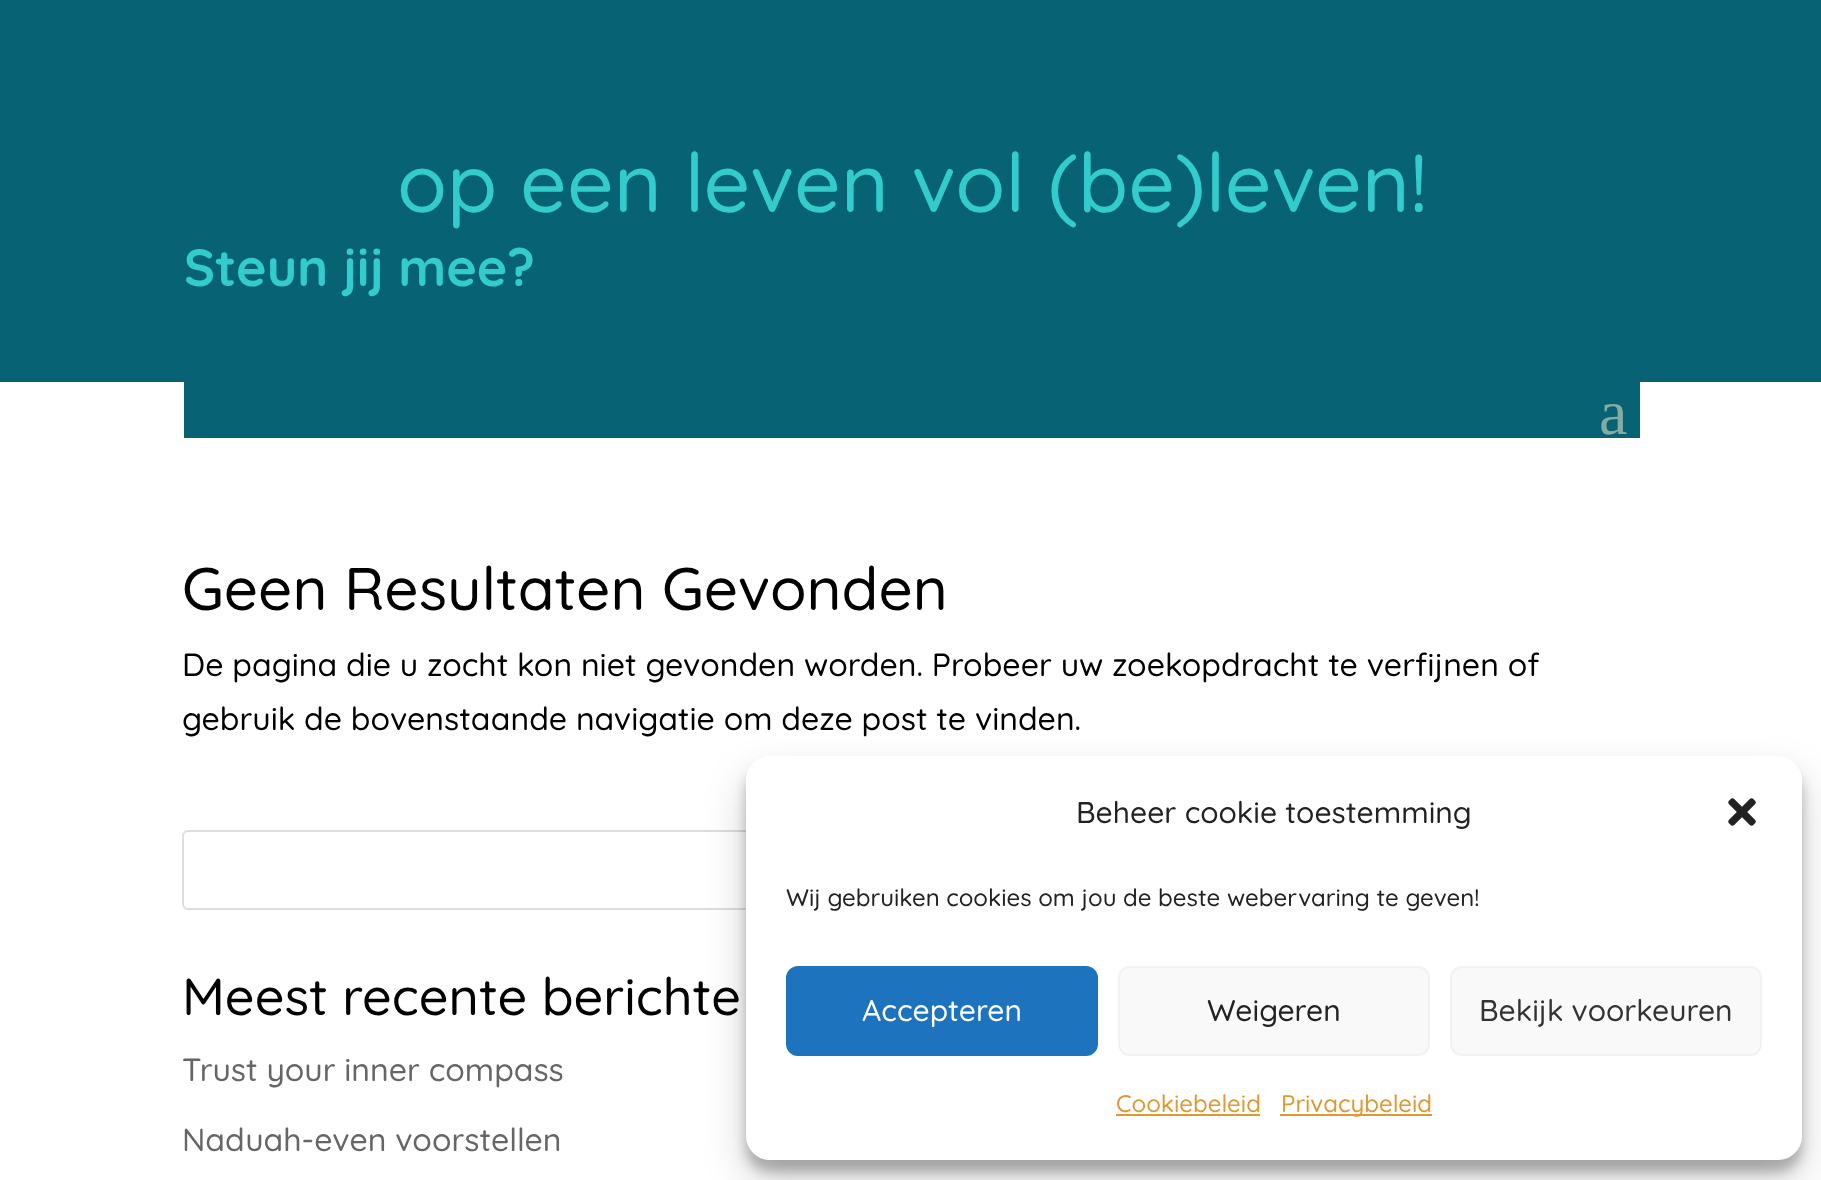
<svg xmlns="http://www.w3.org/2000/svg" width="1821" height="1180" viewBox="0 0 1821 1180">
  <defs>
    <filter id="blur1" x="-50%" y="-200%" width="200%" height="500%"><feGaussianBlur stdDeviation="6"/></filter>
    <filter id="blur2" x="-50%" y="-200%" width="200%" height="500%"><feGaussianBlur stdDeviation="20"/></filter>
  </defs>
  <rect width="100%" height="100%" fill="#ffffff"/>
  <rect x="0" y="0" width="1821" height="382" fill="#076274"/>
  <text x="397" y="212" font-family="Quicksand" font-size="82" font-weight="300" fill="#33cccc">op een leven vol (be)leven!</text>
  <text x="184" y="286" font-family="'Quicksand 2'" font-size="52" font-weight="300" fill="#33cccc">Steun jij mee?</text>
  <rect x="184" y="382" width="1456" height="56" fill="#076274"/>
  <text x="1599" y="434" font-family="Liberation Serif" font-size="64" fill="#83ada4">a</text>
  <text x="182" y="610" font-family="Quicksand" font-size="60" font-weight="300" fill="#000000">Geen Resultaten Gevonden</text>
  <text x="182" y="676" font-family="Quicksand" font-size="32" font-weight="300" fill="#000000">De pagina die u zocht kon niet gevonden worden. Probeer uw zoekopdracht te verfijnen of</text>
  <text x="182" y="730" font-family="Quicksand" font-size="32" font-weight="300" fill="#000000">gebruik de bovenstaande navigatie om deze post te vinden.</text>
  <rect x="183" y="831" width="1456" height="78" rx="5" fill="none" stroke="#dddddd" stroke-width="2"/>
  <text x="182" y="1015" font-family="Quicksand" font-size="52" font-weight="300" fill="#000000">Meest recente berichte</text>
  <text x="182" y="1081" font-family="Quicksand" font-size="32" font-weight="300" fill="#666666">Trust your inner compass</text>
  <text x="182" y="1151" font-family="Quicksand" font-size="32" font-weight="300" fill="#666666">Naduah-even voorstellen</text>
  <rect x="746" y="768" width="1056" height="404" rx="24" fill="#000000" fill-opacity="0.23" filter="url(#blur1)"/>
  <rect x="746" y="776" width="1056" height="404" rx="24" fill="#000000" fill-opacity="0.19" filter="url(#blur2)"/>
  <rect x="746" y="756" width="1056" height="404" rx="24" fill="#ffffff"/>
  <text x="1076" y="823" font-family="Quicksand" font-size="30" font-weight="300" fill="#222222">Beheer cookie toestemming</text>
  <image x="1728" y="798" width="28" height="28" href="img1.png"/>
  <text x="786" y="906" font-family="Quicksand" font-size="24" font-weight="300" fill="#222222">Wij gebruiken cookies om jou de beste webervaring te geven!</text>
  <rect x="787" y="967" width="310" height="88" rx="11" fill="#1e73be" stroke="#1e73be" stroke-width="2"/>
  <text x="862" y="1021" font-family="Quicksand" font-size="30" font-weight="300" fill="#ffffff">Accepteren</text>
  <rect x="1119" y="967" width="310" height="88" rx="11" fill="#f9f9f9" stroke="#f2f2f2" stroke-width="2"/>
  <text x="1207" y="1021" font-family="Quicksand" font-size="30" font-weight="300" fill="#222222">Weigeren</text>
  <rect x="1451" y="967" width="310" height="88" rx="11" fill="#f9f9f9" stroke="#f2f2f2" stroke-width="2"/>
  <text x="1479" y="1021" font-family="Quicksand" font-size="30" font-weight="300" fill="#333333">Bekijk voorkeuren</text>
  <text x="1116" y="1112" font-family="Quicksand" font-size="24" font-weight="300" fill="#dd9933">Cookiebeleid</text>
  <rect x="1116" y="1114" width="144" height="2" fill="#dd9933"/>
  <rect x="1280" y="1114" width="152" height="2" fill="#dd9933"/>
  <text x="1281" y="1112" font-family="Quicksand" font-size="24" font-weight="300" fill="#dd9933">Privacybeleid</text>
</svg>
